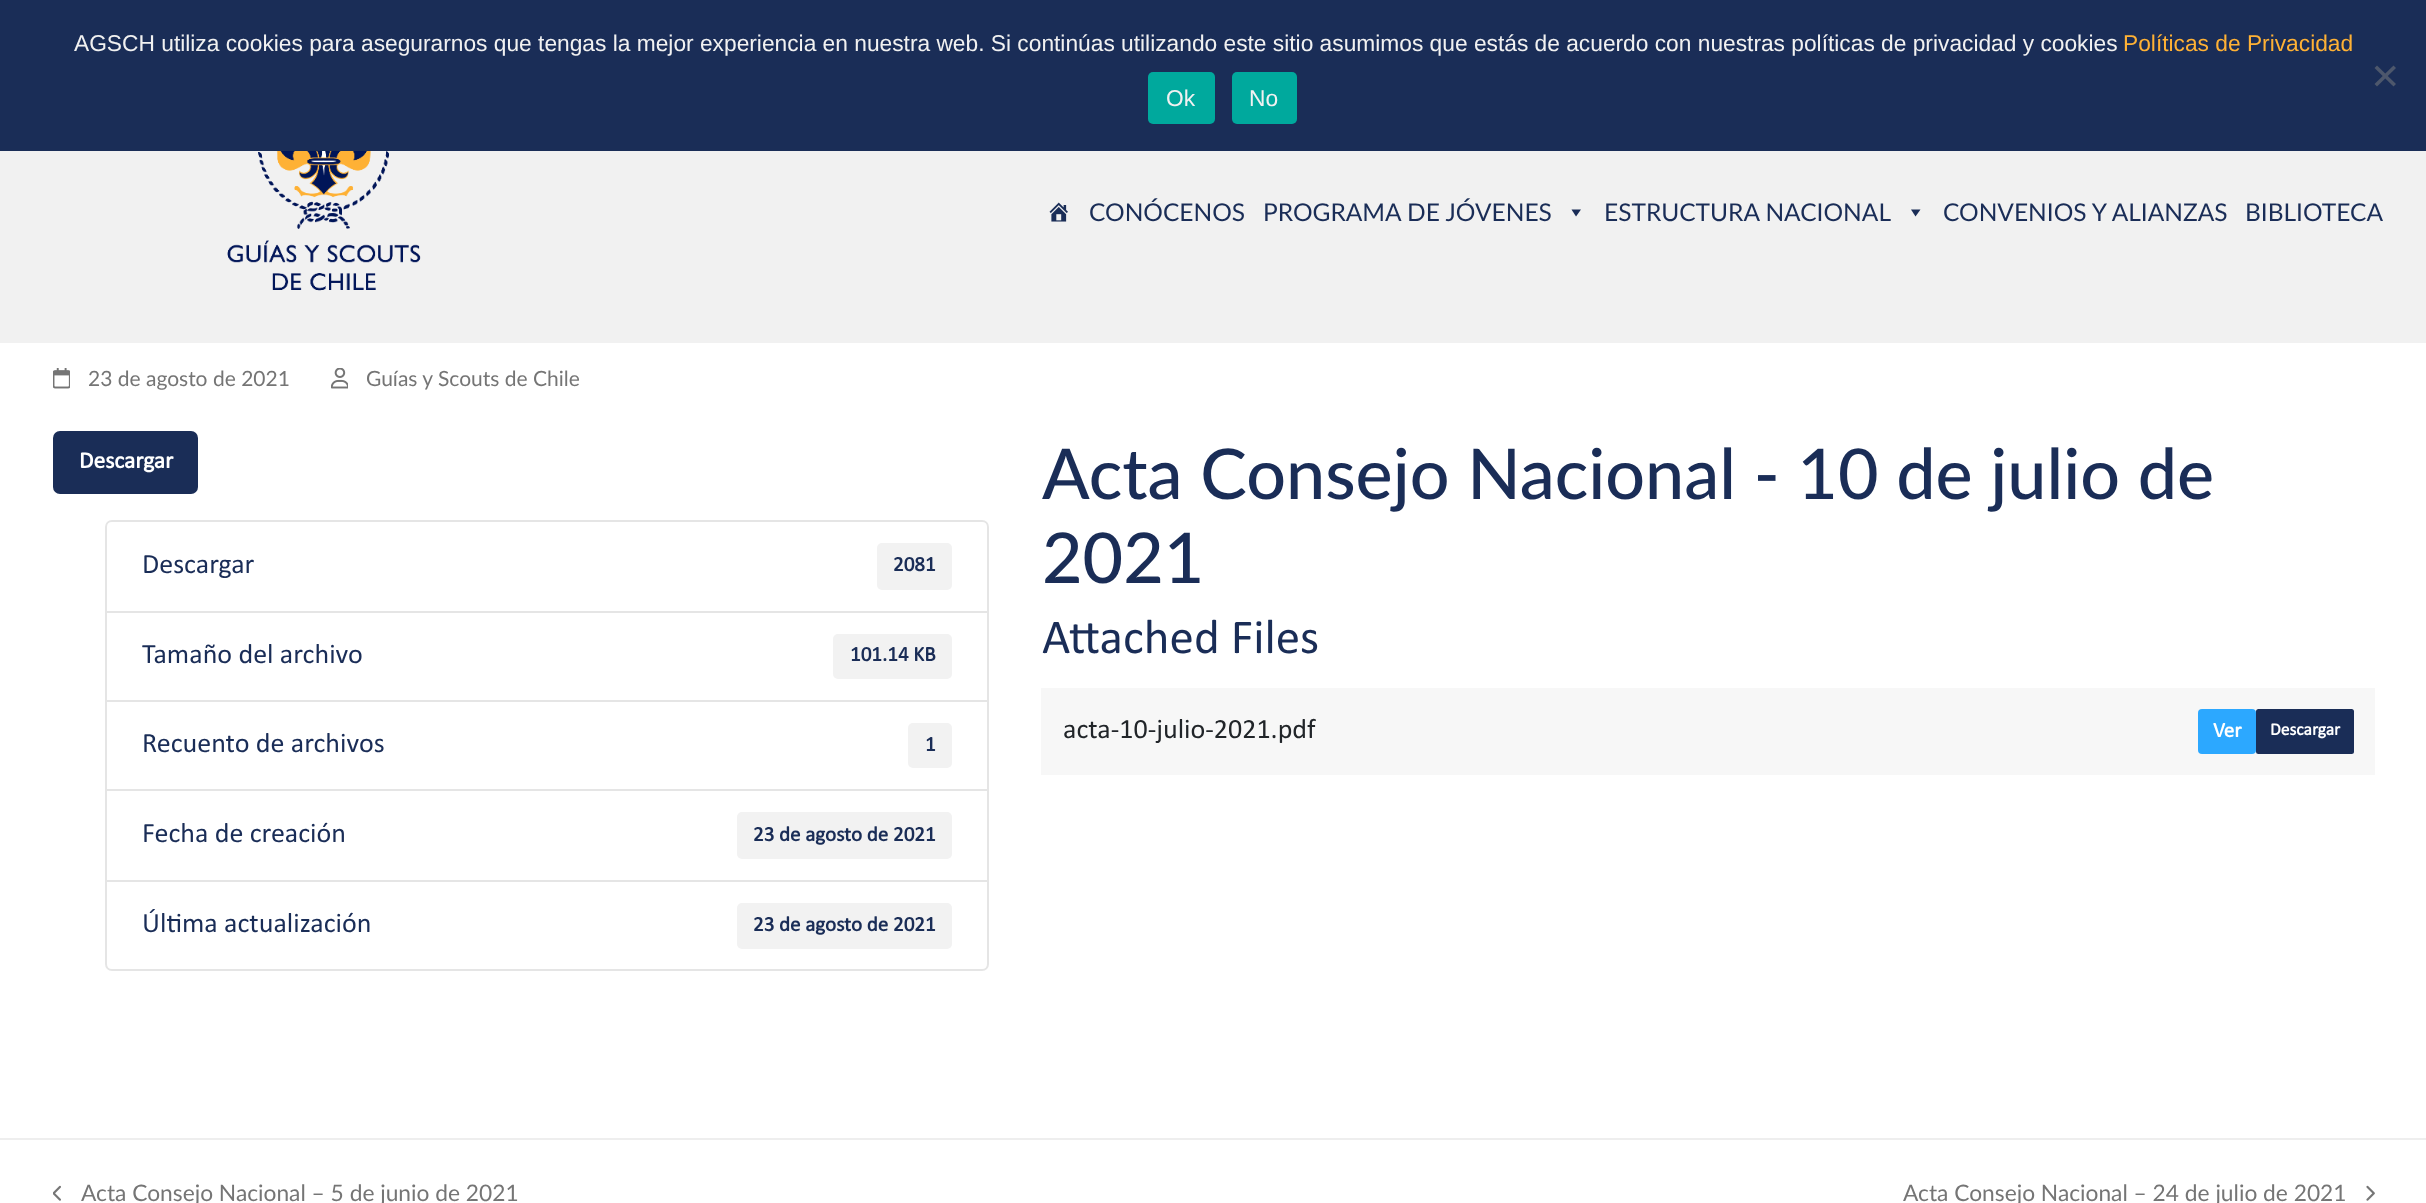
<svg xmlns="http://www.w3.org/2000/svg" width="2426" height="1203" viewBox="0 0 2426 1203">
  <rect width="100%" height="100%" fill="#ffffff"/>
  <rect x="0" y="0" width="2426" height="151" fill="#1a2d57"/>
  <text x="74" y="51" font-family="Liberation Sans" font-size="22.75" fill="#f1f1f1">AGSCH utiliza cookies para asegurarnos que tengas la mejor experiencia en nuestra web. Si continúas utilizando este sitio asumimos que estás de acuerdo con nuestras políticas de privacidad y cookies</text>
  <text x="2123" y="51" font-family="Liberation Sans" font-size="22.75" fill="#feb135">Políticas de Privacidad</text>
  <path d="M2393.5 65.5L2396 68L2377 86.5L2374.5 84Z" fill="#4d576c"/>
  <path d="M2374.5 68L2377 65.5L2396 84L2393.5 86.5Z" fill="#4d576c"/>
  <rect x="1148" y="72" width="67" height="52" rx="5" fill="#00a99d"/>
  <text x="1166" y="106" font-family="Liberation Sans" font-size="22.75" fill="#f1f1f1">Ok</text>
  <rect x="1232" y="72" width="65" height="52" rx="5" fill="#00a99d"/>
  <text x="1249" y="106" font-family="Liberation Sans" font-size="22.75" fill="#f1f1f1">No</text>
  <rect x="0" y="151" width="2426" height="192" fill="#f1f1f1"/>
  <image x="227" y="151" width="194" height="140" href="img1.png"/>
  <image x="1049" y="202" width="19" height="20" href="img2.png"/>
  <text x="1089" y="221" font-family="Lato" font-size="24.5" fill="#1a2d57">CONÓCENOS</text>
  <text x="1263" y="221" font-family="Lato" font-size="24.5" fill="#1a2d57">PROGRAMA DE JÓVENES</text>
  <path d="M1581 209.5L1576 216.5L1571.5 209.5Z" fill="#1a2d57"/>
  <text x="1604" y="221" font-family="Lato" font-size="24.5" fill="#1a2d57">ESTRUCTURA NACIONAL</text>
  <path d="M1920.5 209.5L1915.5 216.5L1911 209.5Z" fill="#1a2d57"/>
  <text x="1943" y="221" font-family="Lato" font-size="24.5" fill="#1a2d57">CONVENIOS Y ALIANZAS</text>
  <text x="2245" y="221" font-family="Lato" font-size="24.5" fill="#1a2d57">BIBLIOTECA</text>
  <image x="53" y="368" width="17" height="21" href="img3.png"/>
  <text x="88" y="386" font-family="Lato" font-size="21" fill="#757575">23 de agosto de 2021</text>
  <image x="331" y="368" width="17" height="21" href="img4.png"/>
  <text x="366" y="386" font-family="Lato" font-size="21" fill="#757575">Guías y Scouts de Chile</text>
  <rect x="53" y="431" width="145" height="63" rx="7" fill="#1a2d57"/>
  <text x="79" y="468" font-family="Calibri" font-size="23.5" font-weight="bold" fill="#ffffff">Descargar</text>
  <path d="M112 521H982C985.5 521 988 523.5 988 527V612H106V527C106 523.5 108.5 521 112 521Z" fill="none" stroke="#e5e5e5" stroke-width="2"/>
  <text x="142" y="573" font-family="Calibri" font-size="28" fill="#1a2d57">Descargar</text>
  <rect x="877" y="543" width="75" height="47" rx="5" fill="#f2f2f2"/>
  <text x="893" y="571" font-family="Calibri" font-size="21" font-weight="bold" fill="#1a2d57">2081</text>
  <rect x="106" y="612" width="882" height="89" fill="none" stroke="#e5e5e5" stroke-width="2"/>
  <text x="142" y="663" font-family="Calibri" font-size="28" fill="#1a2d57">Tamaño del archivo</text>
  <rect x="833" y="634" width="119" height="45" rx="5" fill="#f2f2f2"/>
  <text x="850" y="661" font-family="Calibri" font-size="21" font-weight="bold" fill="#1a2d57">101.14 KB</text>
  <rect x="106" y="701" width="882" height="89" fill="none" stroke="#e5e5e5" stroke-width="2"/>
  <text x="142" y="752" font-family="Calibri" font-size="28" fill="#1a2d57">Recuento de archivos</text>
  <rect x="908" y="723" width="44" height="45" rx="5" fill="#f2f2f2"/>
  <text x="925" y="751" font-family="Calibri" font-size="21" font-weight="bold" fill="#1a2d57">1</text>
  <rect x="106" y="790" width="882" height="91" fill="none" stroke="#e5e5e5" stroke-width="2"/>
  <text x="142" y="842" font-family="Calibri" font-size="28" fill="#1a2d57">Fecha de creación</text>
  <rect x="737" y="812" width="215" height="47" rx="5" fill="#f2f2f2"/>
  <text x="753" y="841" font-family="Calibri" font-size="21" font-weight="bold" fill="#1a2d57">23 de agosto de 2021</text>
  <path d="M106 881H988V964C988 967.5 985.5 970 982 970H112C108.5 970 106 967.5 106 964Z" fill="#ffffff" stroke="#e5e5e5" stroke-width="2"/>
  <text x="142" y="932" font-family="Calibri" font-size="28" fill="#1a2d57">Última actualización</text>
  <rect x="737" y="903" width="215" height="46" rx="5" fill="#f2f2f2"/>
  <text x="753" y="931" font-family="Calibri" font-size="21" font-weight="bold" fill="#1a2d57">23 de agosto de 2021</text>
  <text x="1042" y="499" font-family="Lato" font-size="70" font-weight="500" fill="#1a2d57">Acta Consejo Nacional - 10 de julio de</text>
  <text x="1042" y="583" font-family="Lato" font-size="70" font-weight="500" fill="#1a2d57">2021</text>
  <text x="1042" y="653" font-family="Calibri" font-size="49" fill="#1a2d57">Attached Files</text>
  <rect x="1041" y="688" width="1334" height="87" fill="#f7f7f7"/>
  <text x="1063" y="738" font-family="Calibri" font-size="28" fill="#212529">acta-10-julio-2021.pdf</text>
  <rect x="2198" y="709" width="58" height="45" rx="4" fill="#2ca8ff"/>
  <text x="2213" y="737" font-family="Calibri" font-size="21" font-weight="bold" fill="#ffffff">Ver</text>
  <rect x="2256" y="709" width="98" height="45" rx="2.5" fill="#1a2d57"/>
  <text x="2270" y="735" font-family="Calibri" font-size="17.5" font-weight="bold" fill="#ffffff">Descargar</text>
  <rect x="0" y="1138" width="2426" height="2" fill="#eeeeee"/>
  <image x="53" y="1185" width="8" height="16" href="img5.png"/>
  <text x="81" y="1201" font-family="Lato" font-size="22.75" fill="#757575">Acta Consejo Nacional – 5 de junio de 2021</text>
  <text x="1903" y="1201" font-family="Lato" font-size="22.75" fill="#757575">Acta Consejo Nacional – 24 de julio de 2021</text>
  <image x="2366" y="1185" width="9" height="16" href="img6.png"/>
</svg>
